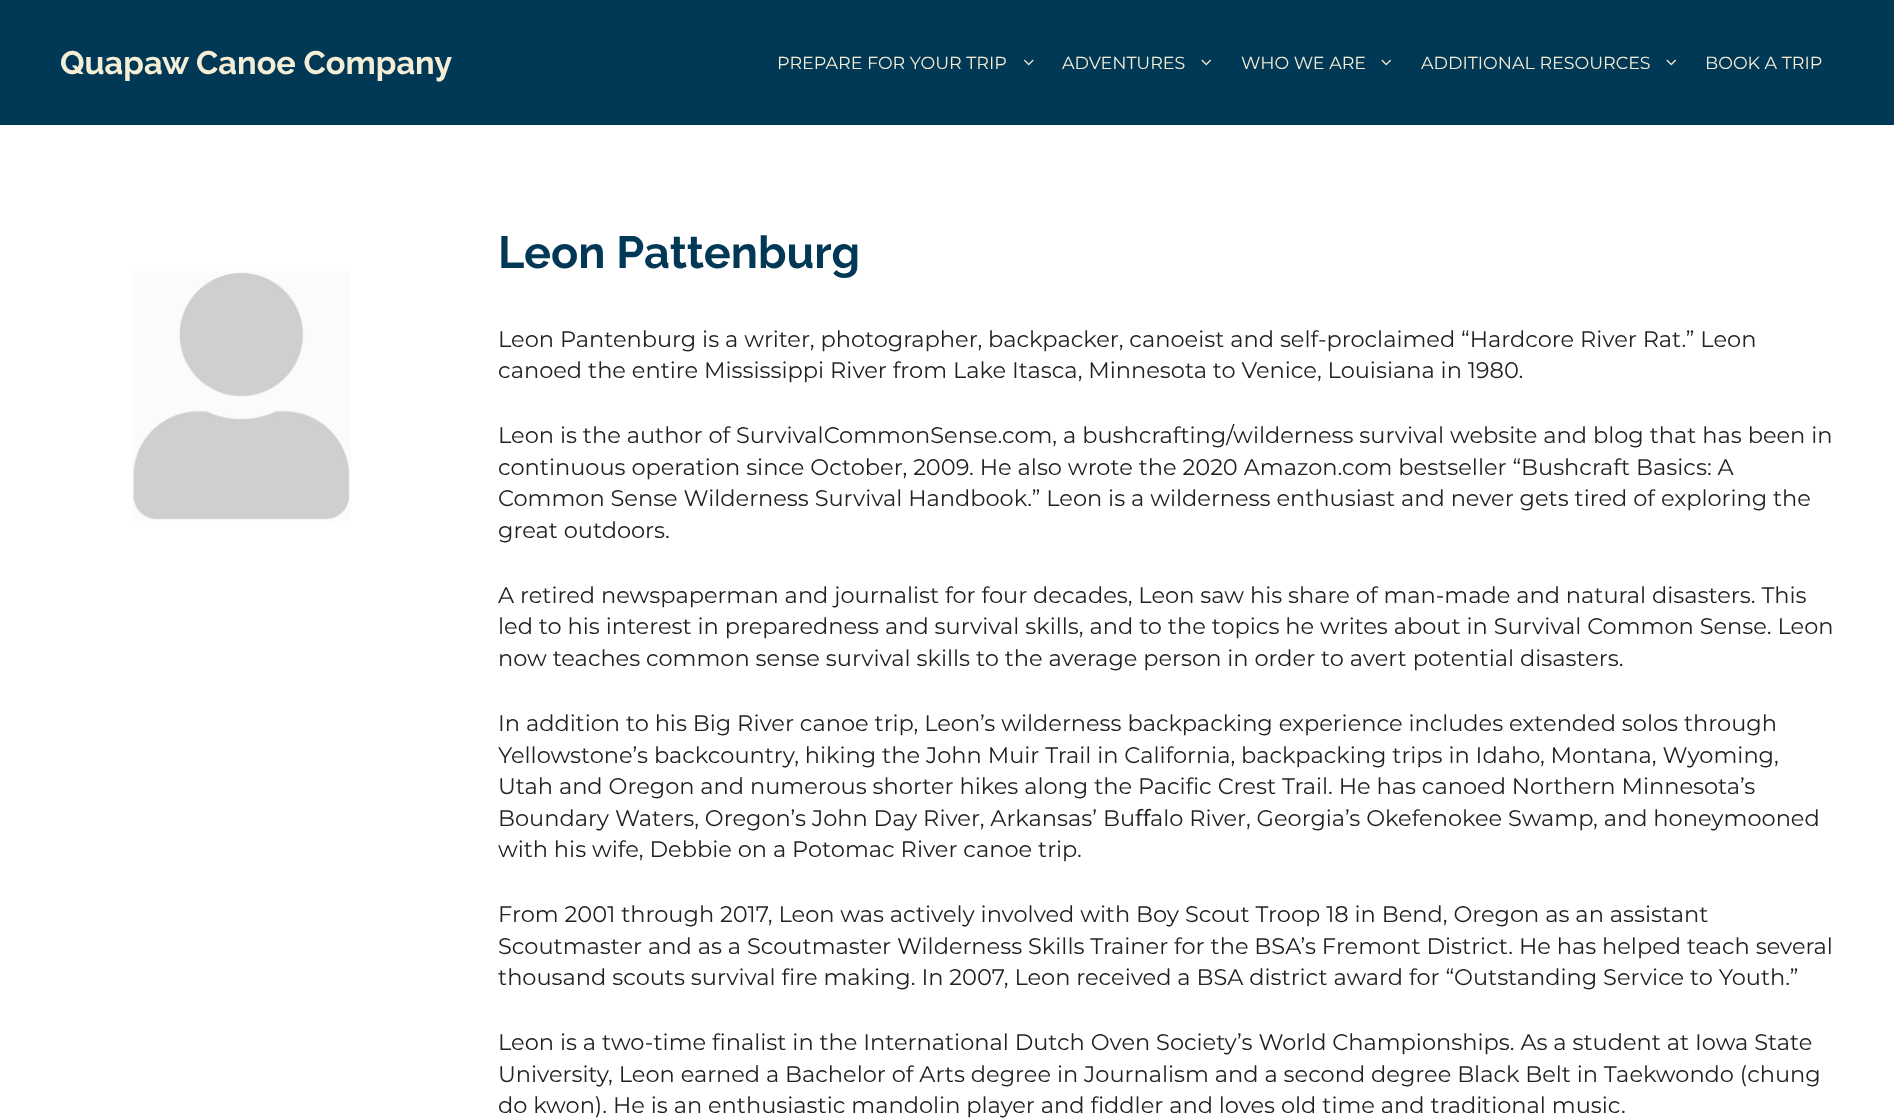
<svg xmlns="http://www.w3.org/2000/svg" width="1894" height="1119" viewBox="0 0 1894 1119">
  <rect width="100%" height="100%" fill="#ffffff"/>
  <rect x="0" y="0" width="1894" height="125" fill="#003855"/>
  <text x="60" y="74" font-family="Raleway" font-size="32.5" font-weight="bold" fill="#f4eed6">Quapaw Canoe Company</text>
  <text x="777" y="69" font-family="Montserrat" font-size="17.5" fill="#f4eed6">PREPARE FOR YOUR TRIP</text>
  <image x="1024" y="59" width="10" height="7" href="img1.png"/>
  <text x="1062" y="69" font-family="Montserrat" font-size="17.5" fill="#f4eed6">ADVENTURES</text>
  <image x="1201" y="59" width="10" height="7" href="img2.png"/>
  <text x="1241" y="69" font-family="Montserrat" font-size="17.5" fill="#f4eed6">WHO WE ARE</text>
  <image x="1381" y="59" width="10" height="7" href="img2.png"/>
  <text x="1421" y="69" font-family="Montserrat" font-size="17.5" fill="#f4eed6">ADDITIONAL RESOURCES</text>
  <image x="1666" y="59" width="10" height="7" href="img2.png"/>
  <text x="1705" y="69" font-family="Montserrat" font-size="17.5" fill="#f4eed6">BOOK A TRIP</text>
  <image x="132" y="271" width="219" height="250" href="img3.png"/>
  <text x="498" y="268" font-family="Raleway" font-size="45" font-weight="bold" fill="#003855">Leon Pattenburg</text>
  <text x="498" y="347" font-family="Montserrat" font-size="22.5" fill="#222222">Leon Pantenburg is a writer, photographer, backpacker, canoeist and self-proclaimed “Hardcore River Rat.” Leon</text>
  <text x="498" y="378" font-family="Montserrat" font-size="22.5" fill="#222222">canoed the entire Mississippi River from Lake Itasca, Minnesota to Venice, Louisiana in 1980.</text>
  <text x="498" y="443" font-family="Montserrat" font-size="22.5" fill="#222222">Leon is the author of SurvivalCommonSense.com, a bushcrafting/wilderness survival website and blog that has been in</text>
  <text x="498" y="475" font-family="Montserrat" font-size="22.5" fill="#222222">continuous operation since October, 2009. He also wrote the 2020 Amazon.com bestseller “Bushcraft Basics: A</text>
  <text x="498" y="506" font-family="Montserrat" font-size="22.5" fill="#222222">Common Sense Wilderness Survival Handbook.” Leon is a wilderness enthusiast and never gets tired of exploring the</text>
  <text x="498" y="538" font-family="Montserrat" font-size="22.5" fill="#222222">great outdoors.</text>
  <text x="498" y="603" font-family="Montserrat" font-size="22.5" fill="#222222">A retired newspaperman and journalist for four decades, Leon saw his share of man-made and natural disasters. This</text>
  <text x="498" y="634" font-family="Montserrat" font-size="22.5" fill="#222222">led to his interest in preparedness and survival skills, and to the topics he writes about in Survival Common Sense. Leon</text>
  <text x="498" y="666" font-family="Montserrat" font-size="22.5" fill="#222222">now teaches common sense survival skills to the average person in order to avert potential disasters.</text>
  <text x="498" y="731" font-family="Montserrat" font-size="22.5" fill="#222222">In addition to his Big River canoe trip, Leon’s wilderness backpacking experience includes extended solos through</text>
  <text x="498" y="763" font-family="Montserrat" font-size="22.5" fill="#222222">Yellowstone’s backcountry, hiking the John Muir Trail in California, backpacking trips in Idaho, Montana, Wyoming,</text>
  <text x="498" y="794" font-family="Montserrat" font-size="22.5" fill="#222222">Utah and Oregon and numerous shorter hikes along the Pacific Crest Trail. He has canoed Northern Minnesota’s</text>
  <text x="498" y="826" font-family="Montserrat" font-size="22.5" fill="#222222">Boundary Waters, Oregon’s John Day River, Arkansas’ Bu</text>
  <text x="1135" y="826" font-family="Noto Sans" font-size="22.5" fill="#222222">ﬀ</text>
  <text x="1150" y="826" font-family="Montserrat" font-size="22.5" fill="#222222">alo River, Georgia’s Okefenokee Swamp, and honeymooned</text>
  <text x="498" y="857" font-family="Montserrat" font-size="22.5" fill="#222222">with his wife, Debbie on a Potomac River canoe trip.</text>
  <text x="498" y="922" font-family="Montserrat" font-size="22.5" fill="#222222">From 2001 through 2017, Leon was actively involved with Boy Scout Troop 18 in Bend, Oregon as an assistant</text>
  <text x="498" y="954" font-family="Montserrat" font-size="22.5" fill="#222222">Scoutmaster and as a Scoutmaster Wilderness Skills Trainer for the BSA’s Fremont District. He has helped teach several</text>
  <text x="498" y="985" font-family="Montserrat" font-size="22.5" fill="#222222">thousand scouts survival fire making. In 2007, Leon received a BSA district award for “Outstanding Service to Youth.”</text>
  <text x="498" y="1050" font-family="Montserrat" font-size="22.5" fill="#222222">Leon is a two-time finalist in the International Dutch Oven Society’s World Championships. As a student at Iowa State</text>
  <text x="498" y="1082" font-family="Montserrat" font-size="22.5" fill="#222222">University, Leon earned a Bachelor of Arts degree in Journalism and a second degree Black Belt in Taekwondo (chung</text>
  <text x="498" y="1113" font-family="Montserrat" font-size="22.5" fill="#222222">do kwon). He is an enthusiastic mandolin player and fiddler and loves old time and traditional music.</text>
</svg>
